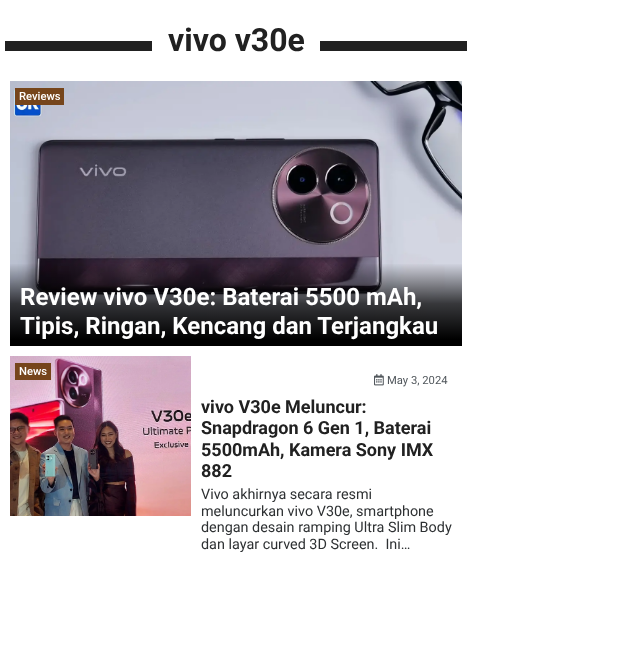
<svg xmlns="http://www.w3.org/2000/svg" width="637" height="659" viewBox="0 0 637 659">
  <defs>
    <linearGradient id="g1" gradientUnits="userSpaceOnUse" x1="236" y1="263" x2="236" y2="346"><stop offset="0" stop-color="#000000" stop-opacity="0"/><stop offset="0.49" stop-color="#000000" stop-opacity="0.74"/><stop offset="0.92" stop-color="#000000"/></linearGradient>
  </defs>
  <rect width="100%" height="100%" fill="#ffffff"/>
  <rect x="5" y="41" width="462" height="10" fill="#212121"/>
  <rect x="152" y="41" width="168" height="10" fill="#ffffff"/>
  <text x="168" y="51" font-family="Roboto" font-size="32" font-weight="bold" fill="#212121">vivo v30e</text>
  <image x="10" y="81" width="452" height="258" href="img1.png"/>
  <rect x="15" y="88" width="49" height="17" fill="#76451b"/>
  <text x="19" y="100" font-family="Roboto" font-size="11.25" font-weight="500" fill="#ffffff">Reviews</text>
  <rect x="10" y="264" width="452" height="82" fill="url(#g1)"/>
  <text x="20" y="305" font-family="Roboto" font-size="24" font-weight="bold" fill="#ffffff">Review vivo V30e: Baterai 5500 mAh,</text>
  <text x="20" y="334" font-family="Roboto" font-size="24" font-weight="bold" fill="#ffffff">Tipis, Ringan, Kencang dan Terjangkau</text>
  <image x="10" y="356" width="181" height="160" href="img2.png"/>
  <rect x="15" y="363" width="36" height="17" fill="#76451b"/>
  <text x="19" y="375" font-family="Roboto" font-size="11.25" font-weight="500" fill="#ffffff">News</text>
  <image x="374" y="374" width="10" height="12" href="img3.png"/>
  <text x="387" y="384" font-family="Roboto" font-size="11.25" fill="#51575c">May 3, 2024</text>
  <text x="201" y="413" font-family="Roboto" font-size="18" font-weight="bold" fill="#212121">vivo V30e Meluncur:</text>
  <text x="201" y="434" font-family="Roboto" font-size="18" font-weight="bold" fill="#212121">Snapdragon 6 Gen 1, Baterai</text>
  <text x="201" y="456" font-family="Roboto" font-size="18" font-weight="bold" fill="#212121">5500mAh, Kamera Sony IMX</text>
  <text x="201" y="477" font-family="Roboto" font-size="18" font-weight="bold" fill="#212121">882</text>
  <text x="201" y="499" font-family="Roboto" font-size="14.4" fill="#2e3133">Vivo akhirnya secara resmi</text>
  <text x="201" y="516" font-family="Roboto" font-size="14.4" fill="#2e3133">meluncurkan vivo V30e, smartphone</text>
  <text x="201" y="532" font-family="Roboto" font-size="14.4" fill="#2e3133">dengan desain ramping Ultra Slim Body</text>
  <text x="201" y="549" font-family="Roboto" font-size="14.4" fill="#2e3133" xml:space="preserve">dan layar curved 3D Screen.  Ini…</text>
</svg>
